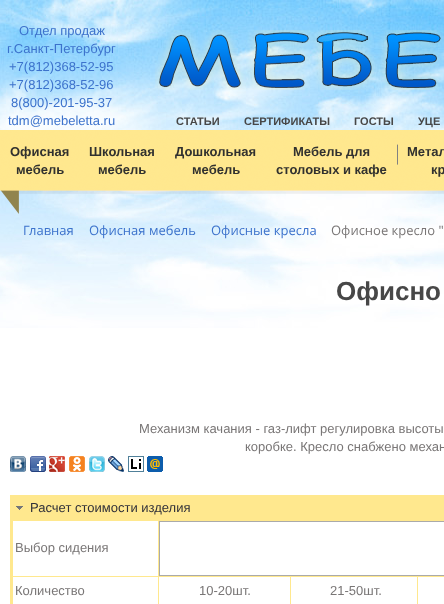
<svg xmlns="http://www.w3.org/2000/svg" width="444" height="604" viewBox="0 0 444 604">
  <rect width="100%" height="100%" fill="#ffffff"/>
  <image x="0" y="0" width="444" height="328" href="img1.png"/>
  <text x="19" y="35" font-family="Liberation Sans" font-size="13" fill="#3c72cc">Отдел продаж</text>
  <text x="7" y="53" font-family="Liberation Sans" font-size="13" fill="#3c72cc">г.Санкт-Петербург</text>
  <text x="9" y="71" font-family="Liberation Sans" font-size="13" fill="#3c72cc">+7(812)368-52-95</text>
  <text x="9" y="89" font-family="Liberation Sans" font-size="13" fill="#3c72cc">+7(812)368-52-96</text>
  <text x="11" y="107" font-family="Liberation Sans" font-size="13" fill="#3c72cc">8(800)-201-95-37</text>
  <text x="8" y="125" font-family="Liberation Sans" font-size="13" fill="#3c72cc">tdm@mebeletta.ru</text>
  <image x="155" y="30" width="289" height="60" href="img2.png"/>
  <text x="176" y="125" font-family="Liberation Sans" font-size="11" font-weight="bold" fill="#474747">СТАТЬИ</text>
  <text x="244" y="125" font-family="Liberation Sans" font-size="11" font-weight="bold" fill="#474747">СЕРТИФИКАТЫ</text>
  <text x="354" y="125" font-family="Liberation Sans" font-size="11" font-weight="bold" fill="#474747">ГОСТЫ</text>
  <text x="418" y="125" font-family="Liberation Sans" font-size="11" font-weight="bold" fill="#474747">УЦЕ</text>
  <image x="0" y="130" width="444" height="84" href="img3.png"/>
  <text x="10" y="156" font-family="Liberation Sans" font-size="13" font-weight="bold" fill="#31312f">Офисная</text>
  <text x="16" y="174" font-family="Liberation Sans" font-size="13" font-weight="bold" fill="#31312f">мебель</text>
  <text x="89" y="156" font-family="Liberation Sans" font-size="13" font-weight="bold" fill="#31312f">Школьная</text>
  <text x="98" y="174" font-family="Liberation Sans" font-size="13" font-weight="bold" fill="#31312f">мебель</text>
  <text x="175" y="156" font-family="Liberation Sans" font-size="13" font-weight="bold" fill="#31312f">Дошкольная</text>
  <text x="192" y="174" font-family="Liberation Sans" font-size="13" font-weight="bold" fill="#31312f">мебель</text>
  <text x="293" y="156" font-family="Liberation Sans" font-size="13" font-weight="bold" fill="#31312f">Мебель для</text>
  <text x="276" y="174" font-family="Liberation Sans" font-size="13" font-weight="bold" fill="#31312f">столовых и кафе</text>
  <image x="397" y="144" width="1" height="21" href="img4.png"/>
  <text x="407" y="156" font-family="Liberation Sans" font-size="13" font-weight="bold" fill="#31312f">Метал</text>
  <text x="431" y="174" font-family="Liberation Sans" font-size="13" font-weight="bold" fill="#31312f">кр</text>
  <text x="23" y="235" font-family="Open Sans" font-size="13" fill="#3c72cc">Главная</text>
  <text x="89" y="235" font-family="Open Sans" font-size="13" fill="#3c72cc">Офисная мебель</text>
  <text x="211" y="235" font-family="Open Sans" font-size="13" fill="#3c72cc">Офисные кресла</text>
  <text x="331" y="235" font-family="Open Sans" font-size="13" fill="#797676">Офисное кресло "</text>
  <text x="336" y="300" font-family="Liberation Sans" font-size="26" font-weight="bold" fill="#474747">Офисно</text>
  <text x="139" y="433" font-family="Liberation Sans" font-size="13" fill="#797676">Механизм качания - газ-лифт регулировка высоты</text>
  <text x="245" y="451" font-family="Liberation Sans" font-size="13" fill="#797676">коробке. Кресло снабжено механ</text>
  <image x="10" y="456" width="16" height="16" href="img5.png"/>
  <image x="30" y="456" width="16" height="16" href="img6.png"/>
  <image x="49" y="456" width="16" height="16" href="img7.png"/>
  <image x="69" y="456" width="16" height="16" href="img8.png"/>
  <image x="89" y="456" width="16" height="16" href="img9.png"/>
  <image x="108" y="456" width="16" height="16" href="img10.png"/>
  <image x="128" y="456" width="16" height="16" href="img11.png"/>
  <image x="147" y="456" width="16" height="16" href="img12.png"/>
  <rect x="10" y="495" width="434" height="109" fill="#ffe88e"/>
  <image x="16" y="506" width="7" height="4" href="img13.png"/>
  <text x="30" y="512" font-family="Liberation Sans" font-size="13" fill="#313139">Расчет стоимости изделия</text>
  <rect x="13" y="521" width="431" height="83" fill="#ffffff"/>
  <text x="15" y="552" font-family="Liberation Sans" font-size="13" fill="#797676">Выбор сидения</text>
  <rect x="417" y="576" width="27" height="1" fill="#ffe88e"/>
  <rect x="417" y="576" width="1" height="28" fill="#ffe88e"/>
  <rect x="290" y="576" width="128" height="1" fill="#ffe88e"/>
  <rect x="290" y="576" width="1" height="28" fill="#ffe88e"/>
  <rect x="158" y="576" width="133" height="1" fill="#ffe88e"/>
  <rect x="158" y="576" width="1" height="28" fill="#ffe88e"/>
  <rect x="12" y="576" width="147" height="1" fill="#ffe88e"/>
  <rect x="158" y="520" width="1" height="57" fill="#ffe88e"/>
  <rect x="159" y="521" width="285" height="1" fill="#aaaaaa"/>
  <rect x="159" y="521" width="1" height="24" fill="#aaaaaa"/>
  <rect x="159" y="575" width="285" height="1" fill="#aaaaaa"/>
  <rect x="159" y="545" width="1" height="31" fill="#aaaaaa"/>
  <text x="15" y="595" font-family="Liberation Sans" font-size="13" fill="#797676">Количество</text>
  <text x="199" y="595" font-family="Liberation Sans" font-size="13" fill="#797676">10-20шт.</text>
  <text x="330" y="595" font-family="Liberation Sans" font-size="13" fill="#797676">21-50шт.</text>
</svg>
